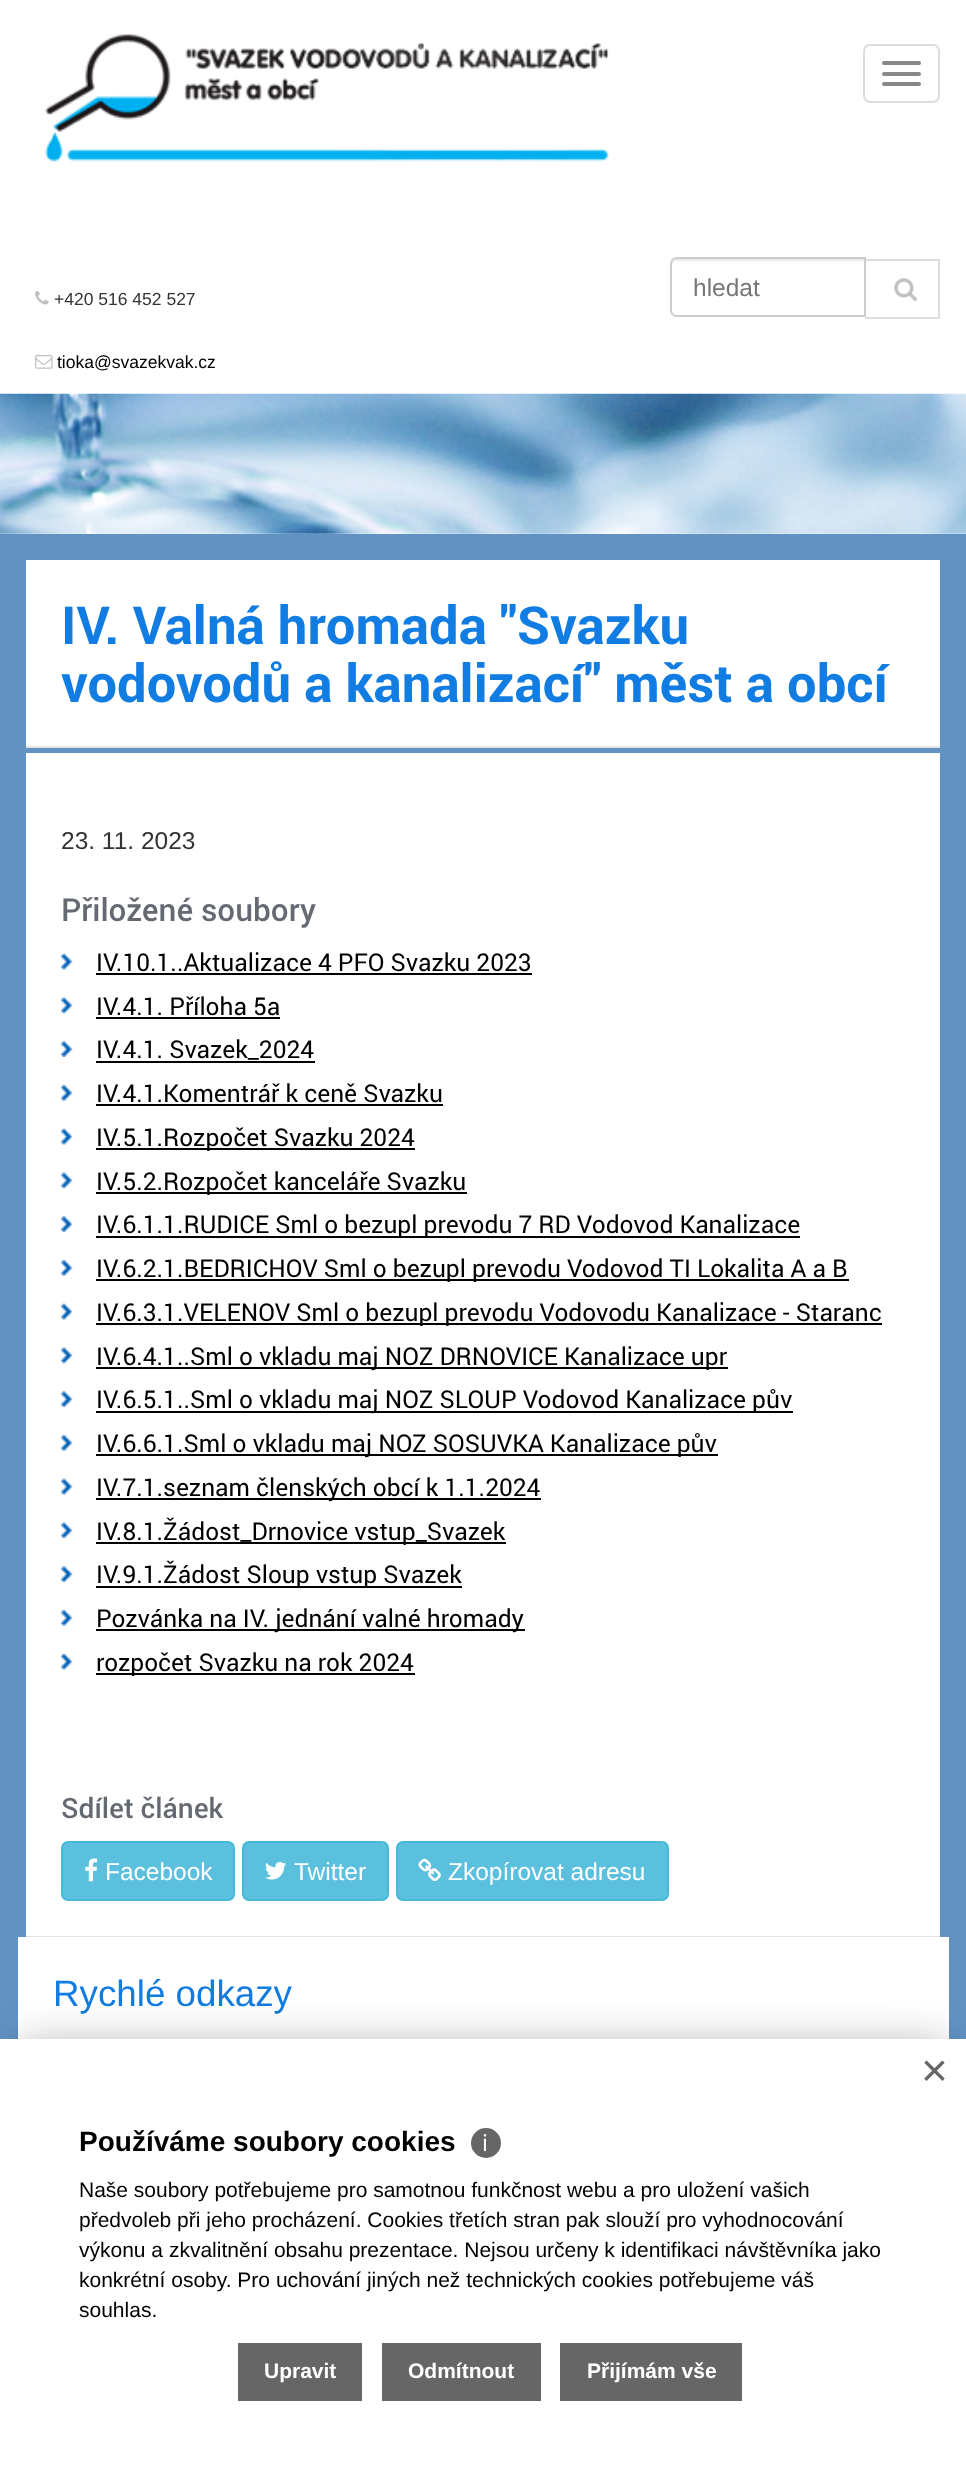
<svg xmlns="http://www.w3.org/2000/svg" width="966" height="2471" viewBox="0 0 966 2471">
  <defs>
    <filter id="blur1" x="-50%" y="-200%" width="200%" height="500%"><feGaussianBlur stdDeviation="26"/></filter>
  </defs>
  <rect width="100%" height="100%" fill="#ffffff"/>
  <rect x="864" y="45" width="75" height="57" rx="6" fill="none" stroke="#dddddd" stroke-width="2"/>
  <rect x="882" y="61" width="39" height="4" rx="2" fill="#888888"/>
  <rect x="882" y="72" width="39" height="4" rx="2" fill="#888888"/>
  <rect x="882" y="82" width="39" height="4" rx="2" fill="#888888"/>
  <image x="45" y="33" width="565" height="129" href="img1.png"/>
  <rect x="865" y="259" width="75" height="2" fill="#dddddd"/>
  <path d="M677 257H866V317H677C673 317 670 314 670 310V264C670 260 673 257 677 257Z" fill="#ffffff"/>
  <path d="M677 261H864V315H865V259H677C674 259 672 261 672 264V266C672 263 674 261 677 261Z" fill="#ececec"/>
  <path d="M677 258H865V316H677C673.5 316 671 313.5 671 310V264C671 260.5 673.5 258 677 258Z" fill="none" stroke="#cccccc" stroke-width="2"/>
  <text x="693" y="296" font-family="Liberation Sans" font-size="24.5" fill="#777777">hledat</text>
  <rect x="938" y="259" width="2" height="60" fill="#dddddd"/>
  <rect x="865" y="317" width="75" height="2" fill="#dddddd"/>
  <image x="894" y="278" width="23" height="23" href="img2.png"/>
  <image x="35" y="290" width="14" height="15" href="img3.png"/>
  <text x="54" y="305" font-family="Liberation Sans" font-size="17.5" fill="#333333">+420 516 452 527</text>
  <image x="35" y="355" width="18" height="14" href="img4.png"/>
  <text x="57" y="368" font-family="Liberation Sans" font-size="17.5" fill="#000000">tioka@svazekvak.cz</text>
  <image x="0" y="393" width="966" height="141" href="img5.png"/>
  <rect x="0" y="534" width="966" height="1505" fill="#6192c2"/>
  <rect x="26" y="560" width="914" height="186" fill="#ffffff"/>
  <rect x="26" y="746" width="914" height="2" fill="#e4e4e4"/>
  <text x="61" y="644" font-family="roboto" font-size="52.5" font-weight="bold" fill="#117ce1">IV. Valná hromada "Svazku</text>
  <text x="61" y="702" font-family="roboto" font-size="52.5" font-weight="bold" fill="#117ce1">vodovodů a kanalizací" měst a obcí</text>
  <rect x="26" y="753" width="914" height="1183" fill="#ffffff"/>
  <rect x="26" y="1936" width="914" height="1" fill="#e4e4e4"/>
  <text x="61" y="849" font-family="Liberation Sans" font-size="24.5" fill="#333333">23. 11. 2023</text>
  <text x="61" y="921" font-family="Roboto" font-size="31.5" font-weight="500" fill="#656a72">Přiložené soubory</text>
  <image x="61" y="953" width="12" height="17" href="img6.png"/>
  <text x="96" y="971" font-family="roboto" font-size="24.5" fill="#000000">IV.10.1..Aktualizace 4 PFO Svazku 2023</text>
  <rect x="96" y="973" width="436" height="2" fill="#000000"/>
  <image x="61" y="997" width="12" height="17" href="img7.png"/>
  <text x="96" y="1015" font-family="roboto" font-size="24.5" fill="#000000">IV.4.1. Příloha 5a</text>
  <rect x="96" y="1017" width="184" height="2" fill="#000000"/>
  <image x="61" y="1041" width="12" height="16" href="img8.png"/>
  <text x="96" y="1058" font-family="roboto" font-size="24.5" fill="#000000">IV.4.1. Svazek_2024</text>
  <rect x="96" y="1061" width="219" height="2" fill="#000000"/>
  <image x="61" y="1085" width="12" height="16" href="img9.png"/>
  <text x="96" y="1102" font-family="roboto" font-size="24.5" fill="#000000">IV.4.1.Komentrář k ceně Svazku</text>
  <rect x="96" y="1104" width="347" height="2" fill="#000000"/>
  <image x="61" y="1128" width="12" height="17" href="img6.png"/>
  <rect x="96" y="1148" width="319" height="2" fill="#000000"/>
  <text x="96" y="1146" font-family="roboto" font-size="24.5" fill="#000000">IV.5.1.Rozpočet Svazku 2024</text>
  <image x="61" y="1172" width="12" height="17" href="img7.png"/>
  <rect x="96" y="1192" width="371" height="2" fill="#000000"/>
  <text x="96" y="1190" font-family="roboto" font-size="24.5" fill="#000000">IV.5.2.Rozpočet kanceláře Svazku</text>
  <image x="61" y="1216" width="12" height="16" href="img8.png"/>
  <rect x="96" y="1236" width="704" height="2" fill="#000000"/>
  <text x="96" y="1233" font-family="roboto" font-size="24.5" fill="#000000">IV.6.1.1.RUDICE Sml o bezupl prevodu 7 RD Vodovod Kanalizace</text>
  <image x="61" y="1260" width="12" height="16" href="img9.png"/>
  <rect x="96" y="1279" width="753" height="2" fill="#000000"/>
  <text x="96" y="1277" font-family="roboto" font-size="24.5" fill="#000000">IV.6.2.1.BEDRICHOV Sml o bezupl prevodu Vodovod TI Lokalita A a B</text>
  <image x="61" y="1303" width="12" height="17" href="img6.png"/>
  <rect x="96" y="1323" width="786" height="2" fill="#000000"/>
  <text x="96" y="1321" font-family="roboto" font-size="24.5" fill="#000000">IV.6.3.1.VELENOV Sml o bezupl prevodu Vodovodu Kanalizace - Staranc</text>
  <image x="61" y="1347" width="12" height="17" href="img7.png"/>
  <rect x="96" y="1367" width="632" height="2" fill="#000000"/>
  <text x="96" y="1365" font-family="roboto" font-size="24.5" fill="#000000">IV.6.4.1..Sml o vkladu maj NOZ DRNOVICE Kanalizace upr</text>
  <image x="61" y="1391" width="12" height="16" href="img8.png"/>
  <rect x="96" y="1411" width="697" height="2" fill="#000000"/>
  <text x="96" y="1408" font-family="roboto" font-size="24.5" fill="#000000">IV.6.5.1..Sml o vkladu maj NOZ SLOUP Vodovod Kanalizace pův</text>
  <image x="61" y="1435" width="12" height="16" href="img9.png"/>
  <rect x="96" y="1454" width="622" height="2" fill="#000000"/>
  <text x="96" y="1452" font-family="roboto" font-size="24.5" fill="#000000">IV.6.6.1.Sml o vkladu maj NOZ SOSUVKA Kanalizace pův</text>
  <image x="61" y="1478" width="12" height="17" href="img6.png"/>
  <rect x="96" y="1498" width="445" height="2" fill="#000000"/>
  <text x="96" y="1496" font-family="roboto" font-size="24.5" fill="#000000">IV.7.1.seznam členských obcí k 1.1.2024</text>
  <image x="61" y="1522" width="12" height="17" href="img7.png"/>
  <rect x="96" y="1542" width="410" height="2" fill="#000000"/>
  <text x="96" y="1540" font-family="roboto" font-size="24.5" fill="#000000">IV.8.1.Žádost_Drnovice vstup_Svazek</text>
  <image x="61" y="1566" width="12" height="16" href="img8.png"/>
  <rect x="96" y="1586" width="366" height="2" fill="#000000"/>
  <text x="96" y="1583" font-family="roboto" font-size="24.5" fill="#000000">IV.9.1.Žádost Sloup vstup Svazek</text>
  <image x="61" y="1610" width="12" height="16" href="img9.png"/>
  <rect x="96" y="1629" width="429" height="2" fill="#000000"/>
  <text x="96" y="1627" font-family="roboto" font-size="24.5" fill="#000000">Pozvánka na IV. jednání valné hromady</text>
  <image x="61" y="1653" width="12" height="17" href="img6.png"/>
  <rect x="96" y="1673" width="319" height="2" fill="#000000"/>
  <text x="96" y="1671" font-family="roboto" font-size="24.5" fill="#000000">rozpočet Svazku na rok 2024</text>
  <text x="61" y="1818" font-family="Roboto" font-size="28" font-weight="500" fill="#656a72">Sdílet článek</text>
  <rect x="62" y="1842" width="172" height="58" rx="6" fill="#5bc0de" stroke="#46b8da" stroke-width="2"/>
  <image x="85" y="1858" width="13" height="24" href="img10.png"/>
  <text x="105" y="1880" font-family="Liberation Sans" font-size="24.5" fill="#ffffff">Facebook</text>
  <rect x="243" y="1842" width="145" height="58" rx="6" fill="#5bc0de" stroke="#46b8da" stroke-width="2"/>
  <image x="265" y="1862" width="22" height="18" href="img11.png"/>
  <text x="294" y="1880" font-family="Liberation Sans" font-size="24.5" fill="#ffffff">Twitter</text>
  <rect x="397" y="1842" width="271" height="58" rx="6" fill="#5bc0de" stroke="#46b8da" stroke-width="2"/>
  <image x="418" y="1858" width="23" height="23" href="img12.png"/>
  <text x="448" y="1880" font-family="Liberation Sans" font-size="24.5" fill="#ffffff">Zkopírovat adresu</text>
  <rect x="18" y="1937" width="931" height="102" fill="#ffffff"/>
  <text x="53" y="2006" font-family="Liberation Sans" font-size="36.75" fill="#117ce1">Rychlé odkazy</text>
  <rect x="18" y="2056" width="931" height="398" fill="#000000" fill-opacity="0.5" filter="url(#blur1)"/>
  <rect x="0" y="2039" width="966" height="432" fill="#ffffff"/>
  <text x="921" y="2086" font-family="Liberation Sans" font-size="46" fill="#666666">×</text>
  <text x="79" y="2151" font-family="Liberation Sans" font-size="28" font-weight="bold" fill="#000000">Používáme soubory cookies</text>
  <circle cx="486" cy="2143" r="15" fill="#666666"/>
  <text x="482" y="2151" font-family="Noto Sans" font-size="23" fill="#ffffff">ℹ</text>
  <text x="79" y="2197" font-family="Liberation Sans" font-size="21" fill="#000000">Naše soubory potřebujeme pro samotnou funkčnost webu a pro uložení vašich</text>
  <text x="79" y="2227" font-family="Liberation Sans" font-size="21" fill="#000000">předvoleb při jeho procházení. Cookies třetích stran pak slouží pro vyhodnocování</text>
  <text x="79" y="2257" font-family="Liberation Sans" font-size="21" fill="#000000">výkonu a zkvalitnění obsahu prezentace. Nejsou určeny k identifikaci návštěvníka jako</text>
  <text x="79" y="2287" font-family="Liberation Sans" font-size="21" fill="#000000">konkrétní osoby. Pro uchování jiných než technických cookies potřebujeme váš</text>
  <text x="79" y="2317" font-family="Liberation Sans" font-size="21" fill="#000000">souhlas.</text>
  <rect x="238" y="2343" width="124" height="58" fill="#666666"/>
  <text x="264" y="2378" font-family="Liberation Sans" font-size="21" font-weight="bold" fill="#ffffff">Upravit</text>
  <rect x="382" y="2343" width="159" height="58" fill="#666666"/>
  <text x="408" y="2378" font-family="Liberation Sans" font-size="21" font-weight="bold" fill="#ffffff">Odmítnout</text>
  <rect x="560" y="2343" width="182" height="58" fill="#666666"/>
  <text x="587" y="2378" font-family="Liberation Sans" font-size="21" font-weight="bold" fill="#ffffff">Přijímám vše</text>
</svg>
